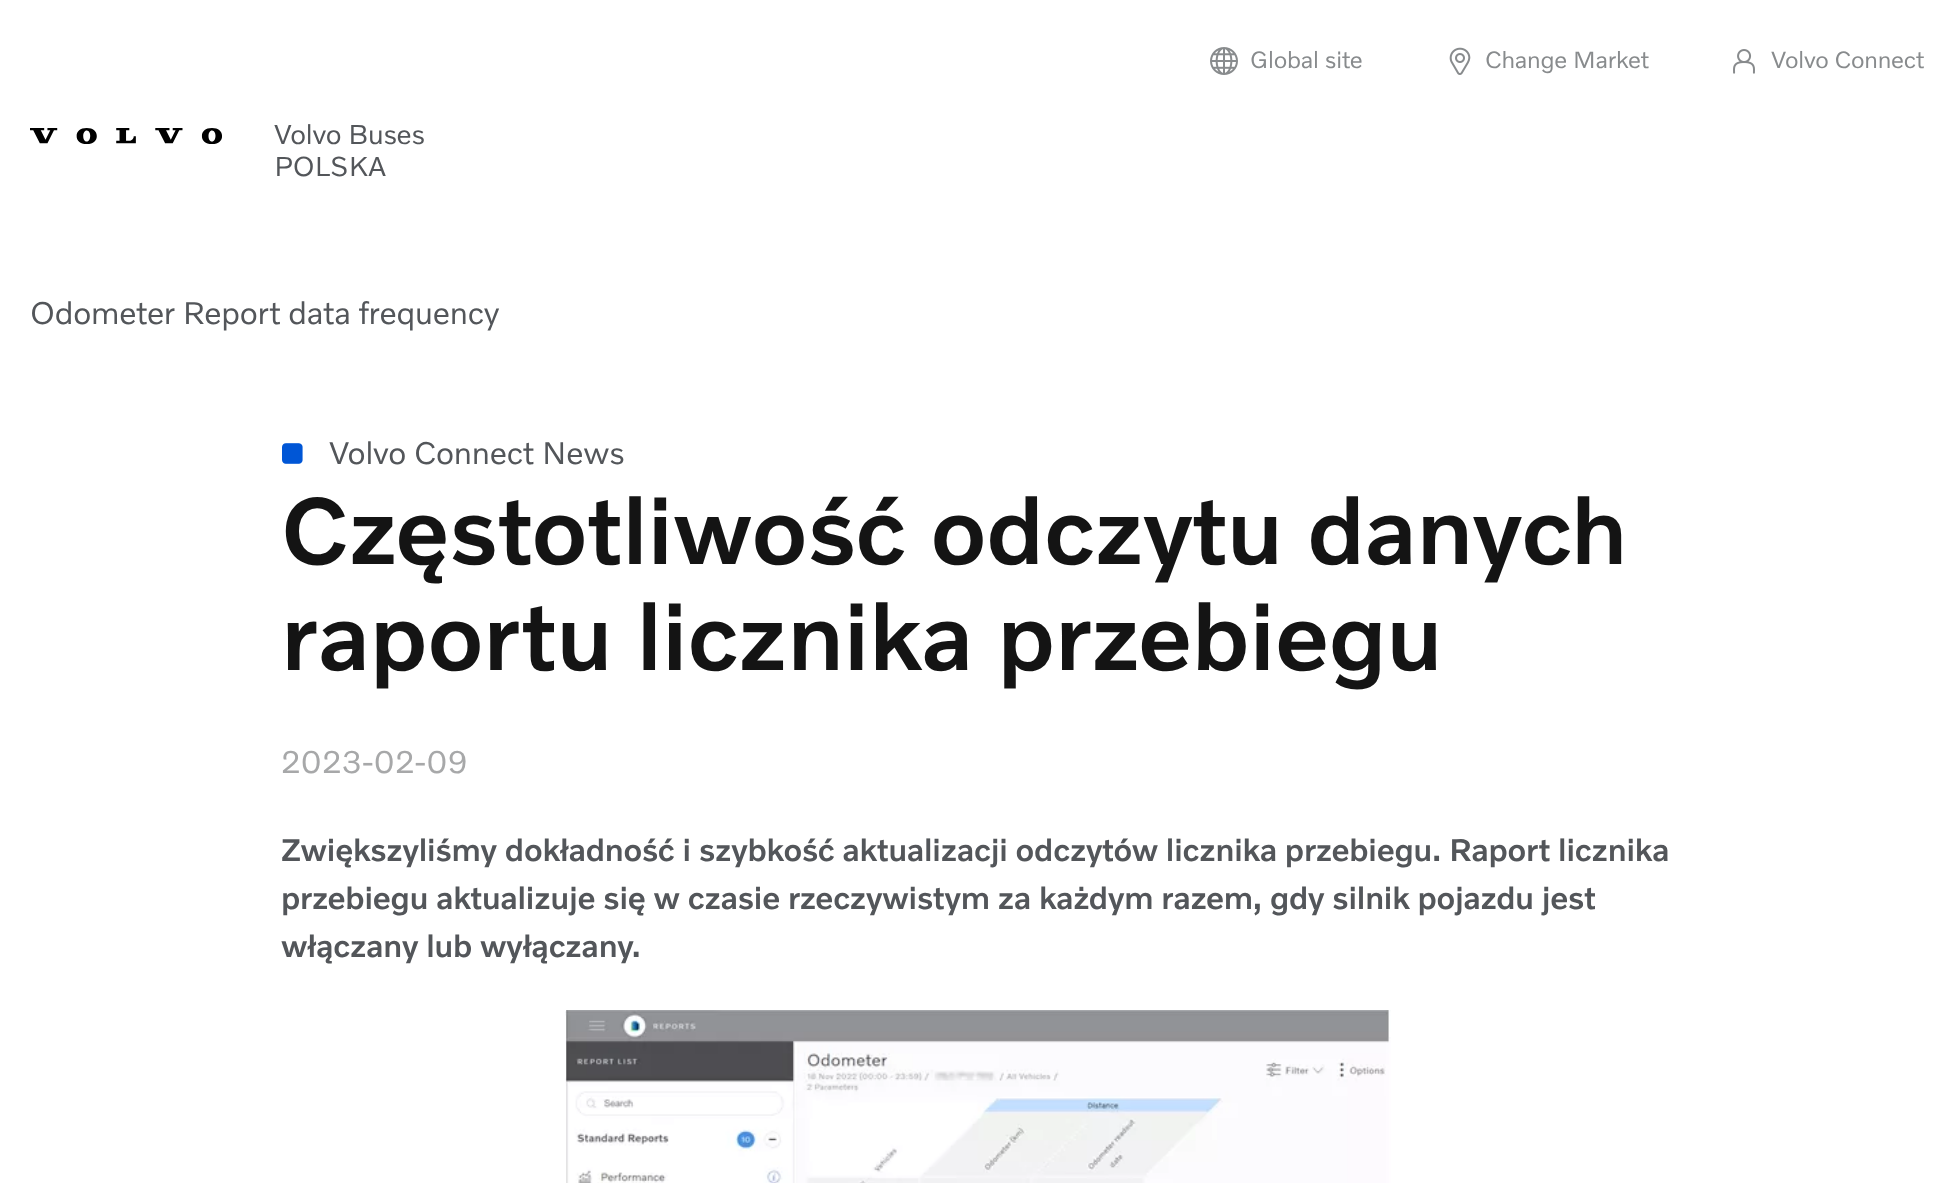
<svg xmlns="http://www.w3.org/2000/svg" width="1953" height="1183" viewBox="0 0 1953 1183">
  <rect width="100%" height="100%" fill="#ffffff"/>
  <image x="1210" y="47" width="28" height="28" href="img1.png"/>
  <text x="1250" y="68" font-family="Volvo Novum" font-size="24" letter-spacing="-0.2" fill="#888b8d">Global site</text>
  <image x="1449" y="47" width="22" height="28" href="img2.png"/>
  <text x="1485" y="68" font-family="Volvo Novum" font-size="24" letter-spacing="-0.2" fill="#888b8d">Change Market</text>
  <image x="1733" y="49" width="22" height="25" href="img3.png"/>
  <text x="1771" y="68" font-family="Volvo Novum" font-size="24" letter-spacing="-0.2" fill="#888b8d">Volvo Connect</text>
  <image x="30" y="128" width="192" height="16" href="img4.png"/>
  <text x="274" y="144" font-family="Volvo Novum" font-size="28" letter-spacing="-0.2" fill="#53565a">Volvo Buses</text>
  <text x="274" y="176" font-family="Volvo Novum" font-size="28" letter-spacing="-0.2" fill="#53565a">POLSKA</text>
  <text x="30" y="324" font-family="Volvo Novum" font-size="32" letter-spacing="-0.2" fill="#53565a">Odometer Report data frequency</text>
  <image x="282" y="443" width="21" height="21" href="img5.png"/>
  <text x="329" y="464" font-family="Volvo Novum" font-size="32" letter-spacing="-0.2" fill="#53565a">Volvo Connect News</text>
  <text x="281" y="564" font-family="Volvo Novum" font-size="96" font-weight="500" letter-spacing="-0.2" fill="#141414">Częstotliwość odczytu danych</text>
  <text x="281" y="670" font-family="Volvo Novum" font-size="96" font-weight="500" letter-spacing="-0.2" fill="#141414">raportu licznika przebiegu</text>
  <text x="281" y="773" font-family="Volvo Novum" font-size="32" letter-spacing="-0.2" fill="#a7a8a9">2023-02-09</text>
  <text x="281" y="861" font-family="Volvo Novum" font-size="32" font-weight="500" letter-spacing="-0.2" fill="#53565a">Zwiększyliśmy dokładność i szybkość aktualizacji odczytów licznika przebiegu. Raport licznika</text>
  <text x="281" y="909" font-family="Volvo Novum" font-size="32" font-weight="500" letter-spacing="-0.2" fill="#53565a">przebiegu aktualizuje się w czasie rzeczywistym za każdym razem, gdy silnik pojazdu jest</text>
  <text x="281" y="957" font-family="Volvo Novum" font-size="32" font-weight="500" letter-spacing="-0.2" fill="#53565a">włączany lub wyłączany.</text>
  <image x="565" y="1010" width="826" height="173" href="img6.png"/>
</svg>
